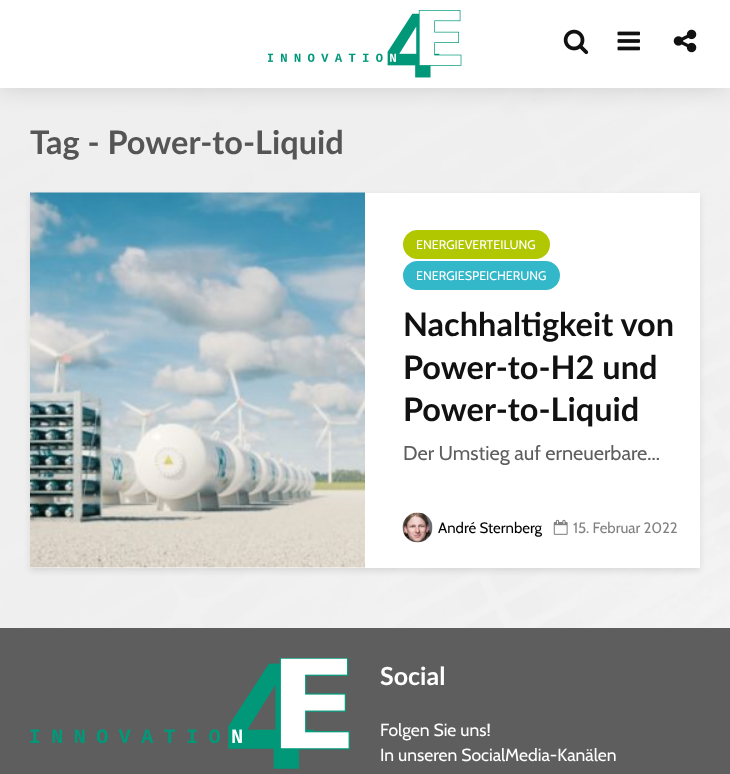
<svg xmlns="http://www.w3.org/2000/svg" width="730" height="774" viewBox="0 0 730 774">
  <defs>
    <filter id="blur1" x="-50%" y="-200%" width="200%" height="500%"><feGaussianBlur stdDeviation="12.5"/></filter>
    <filter id="blur2" x="-50%" y="-200%" width="200%" height="500%"><feGaussianBlur stdDeviation="3"/></filter>
  </defs>
  <rect width="100%" height="100%" fill="#ffffff"/>
  <image x="0" y="88" width="730" height="540" href="img1.png"/>
  <rect x="0" y="0" width="730" height="88" fill="#000000" fill-opacity="0.15" filter="url(#blur1)"/>
  <rect x="0" y="0" width="730" height="88" fill="#ffffff"/>
  <image x="268" y="10" width="194" height="68" href="img2.png"/>
  <image x="563" y="29" width="26" height="26" href="img3.png"/>
  <image x="617" y="31" width="23" height="20" href="img4.png"/>
  <image x="673" y="29" width="24" height="24" href="img5.png"/>
  <text x="30" y="154" font-family="Lato" font-size="32.5" font-weight="bold" fill="#555555">Tag - Power-to-Liquid</text>
  <rect x="30" y="196" width="670" height="375" fill="#000101" fill-opacity="0.1" filter="url(#blur2)"/>
  <rect x="30" y="193" width="670" height="375" fill="#ffffff"/>
  <image x="30" y="192" width="335" height="376" href="img6.png"/>
  <rect x="403" y="230" width="147" height="29" rx="14.5" fill="#b1c800"/>
  <text x="416" y="249" font-family="Cabin" font-size="12.5" fill="#ffffff">ENERGIEVERTEILUNG</text>
  <rect x="403" y="261" width="157" height="29" rx="14.5" fill="#33b8ca"/>
  <text x="416" y="280" font-family="Cabin" font-size="12.5" fill="#ffffff">ENERGIESPEICHERUNG</text>
  <text x="403" y="336" font-family="Lato" font-size="32.5" font-weight="bold" fill="#111111">Nachhaltigkeit von</text>
  <text x="403" y="379" font-family="Lato" font-size="32.5" font-weight="bold" fill="#111111">Power-to-H2 und</text>
  <text x="403" y="421" font-family="Lato" font-size="32.5" font-weight="bold" fill="#111111">Power-to-Liquid</text>
  <text x="403" y="460" font-family="Cabin" font-size="20" fill="#5e5e5e">Der Umstieg auf erneuerbare...</text>
  <image x="402" y="512" width="31" height="31" href="img7.png"/>
  <text x="438" y="533" font-family="Cabin" font-size="15" fill="#000000">André Sternberg</text>
  <image x="553" y="519" width="15" height="16" href="img8.png"/>
  <text x="573" y="533" font-family="Cabin" font-size="15" fill="#818181">15. Februar 2022</text>
  <rect x="0" y="628" width="730" height="146" fill="#5e5e5e"/>
  <image x="30" y="658" width="320" height="111" href="img9.png"/>
  <text x="380" y="685" font-family="Lato" font-size="25" font-weight="bold" fill="#ffffff">Social</text>
  <text x="380" y="736" font-family="Cabin" font-size="17.5" fill="#ffffff">Folgen Sie uns!</text>
  <text x="380" y="761" font-family="Cabin" font-size="17.5" fill="#ffffff">In unseren SocialMedia-Kanälen</text>
</svg>
